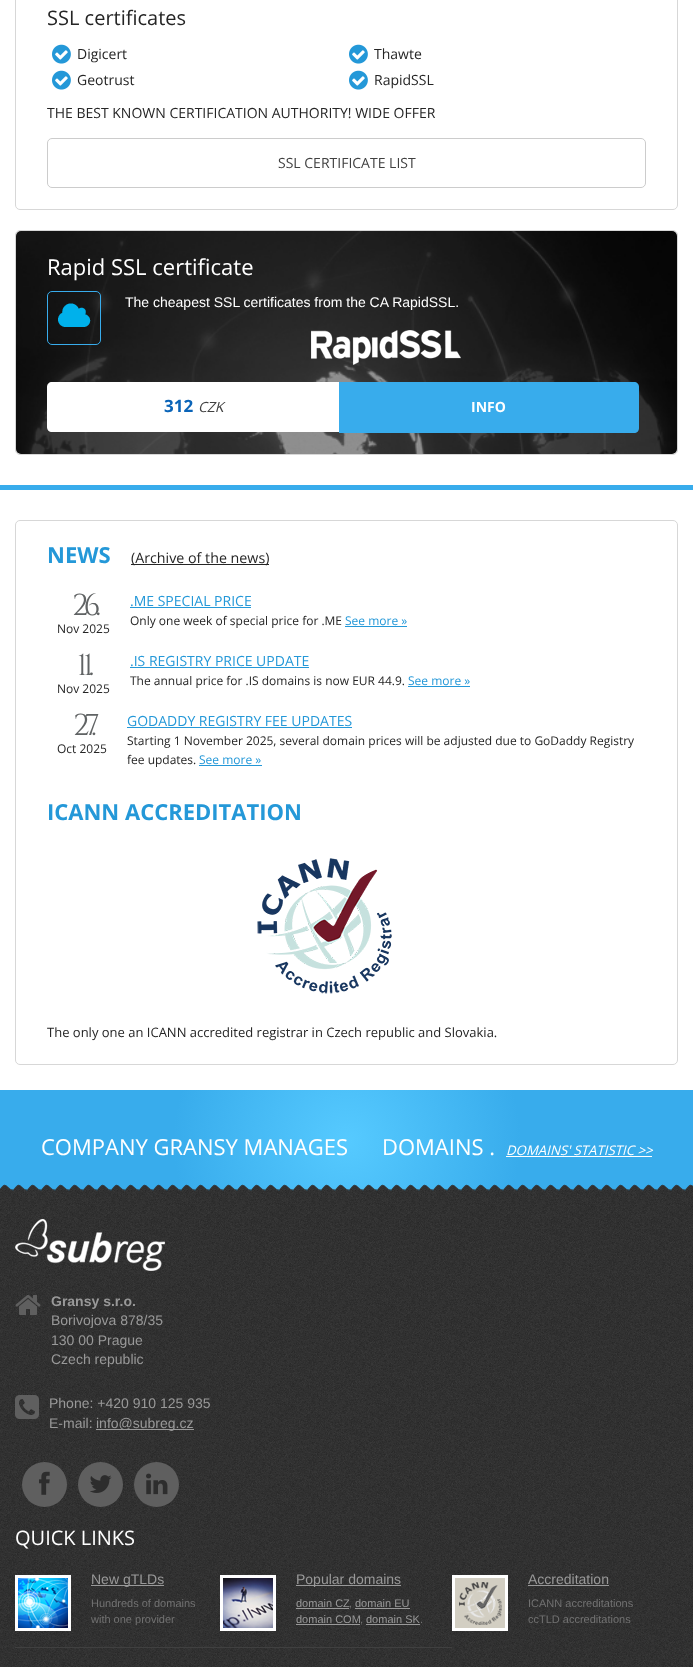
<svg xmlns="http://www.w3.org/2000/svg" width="693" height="1667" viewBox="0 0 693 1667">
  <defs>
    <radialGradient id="g1" gradientUnits="userSpaceOnUse" cx="347" cy="1141" r="347"><stop offset="0" stop-color="#56caff"/><stop offset="0.5" stop-color="#38acec"/></radialGradient>
  </defs>
  <rect width="100%" height="100%" fill="#ffffff"/>
  <rect x="15.5" y="-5.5" width="662" height="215" rx="4.5" fill="none" stroke="#d7d7d7"/>
  <text x="47" y="25" font-family="Open Sans" font-size="20" fill="#252525">SSL certificates</text>
  <image x="52" y="44" width="19" height="20" href="img1.png"/>
  <text x="77" y="59" font-family="Open Sans" font-size="14" fill="#252525">Digicert</text>
  <image x="349" y="44" width="19" height="20" href="img1.png"/>
  <text x="374" y="59" font-family="Open Sans" font-size="14" fill="#252525">Thawte</text>
  <image x="52" y="70" width="19" height="20" href="img1.png"/>
  <text x="77" y="85" font-family="Open Sans" font-size="14" fill="#252525">Geotrust</text>
  <image x="349" y="70" width="19" height="20" href="img1.png"/>
  <text x="374" y="85" font-family="Open Sans" font-size="14" fill="#252525">RapidSSL</text>
  <text x="47" y="118" font-family="Open Sans" font-size="14" fill="#252525">THE BEST KNOWN CERTIFICATION AUTHORITY! WIDE OFFER</text>
  <rect x="47.5" y="138.5" width="598" height="49" rx="4.5" fill="none" stroke="#cccccc"/>
  <text x="278" y="168" font-family="Open Sans" font-size="14" fill="#404040">SSL CERTIFICATE LIST</text>
  <rect x="15.5" y="230.5" width="662" height="224" rx="4.5" fill="none" stroke="#d7d7d7"/>
  <image x="16" y="231" width="661" height="223" href="img2.png"/>
  <text x="47" y="275" font-family="Open Sans" font-size="22" fill="#ffffff">Rapid SSL certificate</text>
  <rect x="47.5" y="291.5" width="53" height="53" rx="4.5" fill="none" stroke="#38acec"/>
  <image x="58" y="303" width="33" height="24" href="img3.png"/>
  <text x="125" y="307" font-family="Liberation Sans" font-size="14" fill="#ffffff">The cheapest SSL certificates from the CA RapidSSL.</text>
  <image x="311" y="330" width="150" height="35" href="img4.png"/>
  <path d="M52 382H341V432H52C49 432 47 430 47 427V387C47 384 49 382 52 382Z" fill="#ffffff"/>
  <text x="164" y="412" font-family="Open Sans" font-size="17" font-weight="bold" fill="#0a64b8">312</text>
  <text x="198" y="412" font-family="Open Sans" font-size="14" font-style="italic" fill="#404040">CZK</text>
  <path d="M339 382H634C637 382 639 384 639 387V428C639 431 637 433 634 433H339Z" fill="#38acec"/>
  <text x="471" y="412" font-family="Open Sans" font-size="14" font-weight="bold" fill="#ffffff">INFO</text>
  <rect x="0" y="485" width="693" height="5" fill="#38acec"/>
  <rect x="15.5" y="520.5" width="662" height="544" rx="4.5" fill="none" stroke="#d7d7d7"/>
  <text x="47" y="563" font-family="Open Sans" font-size="22" font-weight="bold" fill="#2498d8">NEWS</text>
  <rect x="131" y="564" width="138" height="1" fill="#252525"/>
  <text x="131" y="563" font-family="Open Sans" font-size="14.25" fill="#252525">(Archive of the news)</text>
  <text x="72" y="615" font-family="Cinzel" font-size="30" letter-spacing="-5" fill="#606364">26.</text>
  <text x="57" y="633" font-family="Open Sans" font-size="12" fill="#252525">Nov 2025</text>
  <text x="130" y="606" font-family="Open Sans" font-size="14" fill="#2498d8">.ME SPECIAL PRICE</text>
  <rect x="130" y="607" width="121" height="1" fill="#2498d8"/>
  <text x="130" y="625" font-family="Open Sans" font-size="12" fill="#252525">Only one week of special price for .ME</text>
  <text x="345" y="625" font-family="Open Sans" font-size="12" fill="#2498d8">See more »</text>
  <rect x="345" y="626" width="62" height="1" fill="#2498d8"/>
  <text x="77" y="675" font-family="Cinzel" font-size="30" letter-spacing="-5" fill="#606364">11.</text>
  <text x="57" y="693" font-family="Open Sans" font-size="12" fill="#252525">Nov 2025</text>
  <text x="130" y="666" font-family="Open Sans" font-size="14" fill="#2498d8">.IS REGISTRY PRICE UPDATE</text>
  <rect x="130" y="667" width="179" height="1" fill="#2498d8"/>
  <text x="130" y="685" font-family="Open Sans" font-size="12" fill="#252525">The annual price for .IS domains is now EUR 44.9.</text>
  <text x="408" y="685" font-family="Open Sans" font-size="12" fill="#2498d8">See more »</text>
  <rect x="408" y="686" width="62" height="1" fill="#2498d8"/>
  <text x="73" y="735" font-family="Cinzel" font-size="30" letter-spacing="-5" fill="#606364">27.</text>
  <text x="57" y="753" font-family="Open Sans" font-size="12" fill="#252525">Oct 2025</text>
  <text x="127" y="726" font-family="Open Sans" font-size="14" fill="#2498d8">GODADDY REGISTRY FEE UPDATES</text>
  <rect x="127" y="727" width="225" height="1" fill="#2498d8"/>
  <text x="127" y="745" font-family="Open Sans" font-size="12" fill="#252525">Starting 1 November 2025, several domain prices will be adjusted due to GoDaddy Registry</text>
  <text x="127" y="764" font-family="Open Sans" font-size="12" fill="#252525">fee updates.</text>
  <text x="199" y="764" font-family="Open Sans" font-size="12" fill="#2498d8">See more »</text>
  <rect x="199" y="765" width="63" height="1" fill="#2498d8"/>
  <text x="47" y="820" font-family="Open Sans" font-size="22" font-weight="bold" fill="#2498d8">ICANN ACCREDITATION</text>
  <image x="257" y="858" width="135" height="136" href="img5.png"/>
  <text x="47" y="1037" font-family="Open Sans" font-size="13" fill="#252525">The only one an ICANN accredited registrar in Czech republic and Slovakia.</text>
  <rect x="0" y="1090" width="693" height="101" fill="url(#g1)"/>
  <text x="41" y="1155" font-family="Open Sans" font-size="22" fill="#ffffff">COMPANY GRANSY MANAGES</text>
  <text x="382" y="1155" font-family="Open Sans" font-size="22" fill="#ffffff">DOMAINS .</text>
  <text x="506" y="1155" font-family="Open Sans" font-size="13.25" font-style="italic" fill="#ffffff">DOMAINS' STATISTIC &gt;&gt;</text>
  <rect x="506" y="1156" width="146" height="1" fill="#ffffff"/>
  <image x="0" y="1184" width="693" height="7" href="img6.png"/>
  <image x="0" y="1191" width="693" height="476" href="img7.png"/>
  <image x="15" y="1219" width="150" height="52" href="img8.png"/>
  <image x="15" y="1295" width="26" height="20" href="img9.png"/>
  <text x="51" y="1306" font-family="Liberation Sans" font-size="14" font-weight="bold" fill="#999999">Gransy s.r.o.</text>
  <text x="51" y="1325" font-family="Liberation Sans" font-size="14" fill="#999999">Borivojova 878/35</text>
  <text x="51" y="1345" font-family="Liberation Sans" font-size="14" fill="#999999">130 00 Prague</text>
  <text x="51" y="1364" font-family="Liberation Sans" font-size="14" fill="#999999">Czech republic</text>
  <image x="15" y="1395" width="24" height="24" href="img10.png"/>
  <text x="49" y="1408" font-family="Liberation Sans" font-size="14" fill="#999999">Phone: +420 910 125 935</text>
  <text x="49" y="1428" font-family="Liberation Sans" font-size="14" fill="#999999">E-mail:</text>
  <rect x="96" y="1429" width="98" height="1" fill="#999999"/>
  <text x="96" y="1428" font-family="Liberation Sans" font-size="14" fill="#999999">info@subreg.cz</text>
  <circle cx="44.5" cy="1484.5" r="22.5" fill="#5f5f5f"/>
  <image x="39" y="1471" width="11" height="24" href="img11.png"/>
  <circle cx="100.5" cy="1484.5" r="22.5" fill="#5f5f5f"/>
  <image x="90" y="1475" width="22" height="18" href="img12.png"/>
  <circle cx="156.5" cy="1484.5" r="22.5" fill="#5f5f5f"/>
  <image x="146" y="1473" width="22" height="22" href="img13.png"/>
  <text x="15" y="1545" font-family="Open Sans" font-size="20" fill="#ffffff">QUICK LINKS</text>
  <rect x="15" y="1647" width="437" height="1" fill="#404040"/>
  <rect x="16.5" y="1576.5" width="53" height="53" fill="none" stroke="#ffffff" stroke-width="3"/>
  <image x="18" y="1578" width="50" height="50" href="img14.png"/>
  <rect x="91" y="1585" width="73" height="1" fill="#999999"/>
  <text x="91" y="1584" font-family="Liberation Sans" font-size="14" fill="#999999">New gTLDs</text>
  <text x="91" y="1607" font-family="Liberation Sans" font-size="11" fill="#727272">Hundreds of domains</text>
  <text x="91" y="1623" font-family="Liberation Sans" font-size="11" fill="#727272">with one provider</text>
  <rect x="221.5" y="1576.5" width="53" height="53" fill="none" stroke="#ffffff" stroke-width="3"/>
  <image x="223" y="1578" width="50" height="50" href="img15.png"/>
  <rect x="296" y="1585" width="105" height="1" fill="#999999"/>
  <text x="296" y="1584" font-family="Liberation Sans" font-size="14" fill="#999999">Popular domains</text>
  <text x="296" y="1607" font-family="Liberation Sans" font-size="11" fill="#999999">domain CZ</text>
  <rect x="296" y="1608" width="53" height="1" fill="#999999"/>
  <text x="349" y="1607" font-family="Liberation Sans" font-size="11" fill="#727272">,</text>
  <text x="355" y="1607" font-family="Liberation Sans" font-size="11" fill="#999999">domain EU</text>
  <rect x="355" y="1608" width="55" height="1" fill="#999999"/>
  <text x="296" y="1623" font-family="Liberation Sans" font-size="11" fill="#999999">domain COM</text>
  <rect x="296" y="1624" width="64" height="1" fill="#999999"/>
  <text x="360" y="1623" font-family="Liberation Sans" font-size="11" fill="#727272">,</text>
  <text x="366" y="1623" font-family="Liberation Sans" font-size="11" fill="#999999">domain SK</text>
  <rect x="366" y="1624" width="54" height="1" fill="#999999"/>
  <text x="420" y="1623" font-family="Liberation Sans" font-size="11" fill="#727272">.</text>
  <rect x="453.5" y="1576.5" width="53" height="53" fill="none" stroke="#ffffff" stroke-width="3"/>
  <image x="455" y="1578" width="50" height="50" href="img16.png"/>
  <text x="528" y="1584" font-family="Liberation Sans" font-size="14" fill="#999999">Accreditation</text>
  <rect x="528" y="1585" width="81" height="1" fill="#999999"/>
  <text x="528" y="1607" font-family="Liberation Sans" font-size="11" fill="#727272">ICANN accreditations</text>
  <text x="528" y="1623" font-family="Liberation Sans" font-size="11" fill="#727272">ccTLD accreditations</text>
</svg>
